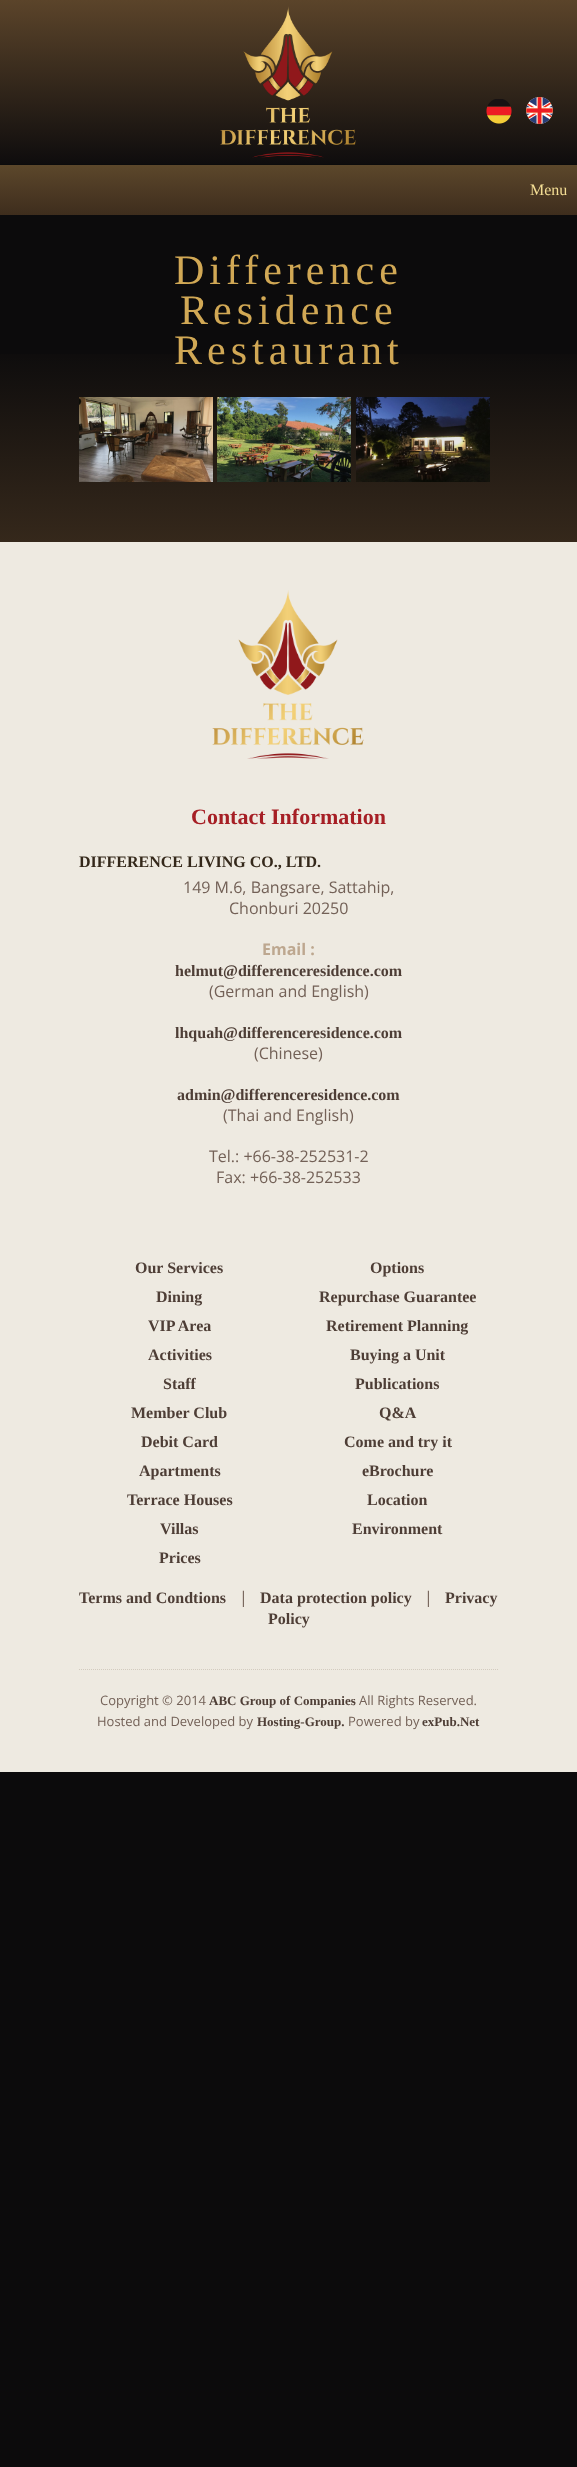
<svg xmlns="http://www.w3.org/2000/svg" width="577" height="2467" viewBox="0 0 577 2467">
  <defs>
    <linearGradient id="g1" gradientUnits="userSpaceOnUse" x1="289" y1="0" x2="289" y2="165"><stop offset="0" stop-color="#5b442a"/><stop offset="1" stop-color="#0e0c0d"/></linearGradient>
    <linearGradient id="g2" gradientUnits="userSpaceOnUse" x1="289" y1="165" x2="289" y2="542"><stop offset="0" stop-color="#0c0b0c"/><stop offset="0.47" stop-color="#0c0b0c"/><stop offset="1" stop-color="#35281b"/></linearGradient>
    <linearGradient id="g3" gradientUnits="userSpaceOnUse" x1="289" y1="165" x2="289" y2="215"><stop offset="0" stop-color="#5c472b"/><stop offset="1" stop-color="#3e2d1d"/></linearGradient>
  </defs>
  <rect width="100%" height="100%" fill="#0c0b0c"/>
  <rect x="0" y="0" width="577" height="164" fill="url(#g1)"/>
  <image x="220" y="6" width="136" height="152" href="img1.png"/>
  <image x="486" y="99" width="26" height="25" href="img2.png"/>
  <image x="526" y="97" width="27" height="27" href="img3.png"/>
  <rect x="0" y="354" width="577" height="188" fill="url(#g2)"/>
  <rect x="0" y="165" width="577" height="50" fill="url(#g3)"/>
  <text x="530" y="195" font-family="Tinos" font-size="16" fill="#f4de95">Menu</text>
  <text x="174" y="284" font-family="Tinos" font-size="42" letter-spacing="5" fill="#d1a855">Difference</text>
  <text x="180" y="324" font-family="Tinos" font-size="42" letter-spacing="5" fill="#d1a855">Residence</text>
  <text x="174" y="364" font-family="Tinos" font-size="42" letter-spacing="5" fill="#d1a855">Restaurant</text>
  <image x="79" y="397" width="134" height="85" href="img4.png"/>
  <image x="217" y="397" width="134" height="85" href="img5.png"/>
  <image x="356" y="397" width="134" height="85" href="img6.png"/>
  <rect x="0" y="542" width="577" height="1230" fill="#eeeae1"/>
  <image x="212" y="590" width="152" height="169" href="img7.png"/>
  <text x="191" y="824" font-family="Tinos" font-size="22" font-weight="bold" fill="#a61f25">Contact Information</text>
  <text x="79" y="867" font-family="Tinos" font-size="16" font-weight="bold" fill="#34281a">DIFFERENCE LIVING CO., LTD.</text>
  <text x="183" y="893" font-family="Open Sans" font-size="16" fill="#736157">149 M.6, Bangsare, Sattahip,</text>
  <text x="229" y="914" font-family="Open Sans" font-size="16" fill="#736157">Chonburi 20250</text>
  <text x="262" y="955" font-family="Open Sans" font-size="16" font-weight="bold" fill="#bda78f">Email :</text>
  <text x="175" y="976" font-family="Tinos" font-size="16" font-weight="bold" fill="#4e3e36">helmut@differenceresidence.com</text>
  <text x="209" y="997" font-family="Open Sans" font-size="16" fill="#736157">(German and English)</text>
  <text x="175" y="1038" font-family="Tinos" font-size="16" font-weight="bold" fill="#4e3e36">lhquah@differenceresidence.com</text>
  <text x="254" y="1059" font-family="Open Sans" font-size="16" fill="#736157">(Chinese)</text>
  <text x="177" y="1100" font-family="Tinos" font-size="16" font-weight="bold" fill="#4e3e36">admin@differenceresidence.com</text>
  <text x="223" y="1121" font-family="Open Sans" font-size="16" fill="#736157">(Thai and English)</text>
  <text x="209" y="1162" font-family="Open Sans" font-size="16" fill="#736157">Tel.: +66-38-252531-2</text>
  <text x="216" y="1183" font-family="Open Sans" font-size="16" fill="#736157">Fax: +66-38-252533</text>
  <text x="135" y="1273" font-family="Tinos" font-size="16" font-weight="bold" fill="#4e3e36">Our Services</text>
  <text x="370" y="1273" font-family="Tinos" font-size="16" font-weight="bold" fill="#4e3e36">Options</text>
  <text x="156" y="1302" font-family="Tinos" font-size="16" font-weight="bold" fill="#4e3e36">Dining</text>
  <text x="319" y="1302" font-family="Tinos" font-size="16" font-weight="bold" fill="#4e3e36">Repurchase Guarantee</text>
  <text x="148" y="1331" font-family="Tinos" font-size="16" font-weight="bold" fill="#4e3e36">VIP Area</text>
  <text x="326" y="1331" font-family="Tinos" font-size="16" font-weight="bold" fill="#4e3e36">Retirement Planning</text>
  <text x="148" y="1360" font-family="Tinos" font-size="16" font-weight="bold" fill="#4e3e36">Activities</text>
  <text x="350" y="1360" font-family="Tinos" font-size="16" font-weight="bold" fill="#4e3e36">Buying a Unit</text>
  <text x="163" y="1389" font-family="Tinos" font-size="16" font-weight="bold" fill="#4e3e36">Staff</text>
  <text x="355" y="1389" font-family="Tinos" font-size="16" font-weight="bold" fill="#4e3e36">Publications</text>
  <text x="131" y="1418" font-family="Tinos" font-size="16" font-weight="bold" fill="#4e3e36">Member Club</text>
  <text x="379" y="1418" font-family="Tinos" font-size="16" font-weight="bold" fill="#4e3e36">Q&amp;A</text>
  <text x="141" y="1447" font-family="Tinos" font-size="16" font-weight="bold" fill="#4e3e36">Debit Card</text>
  <text x="344" y="1447" font-family="Tinos" font-size="16" font-weight="bold" fill="#4e3e36">Come and try it</text>
  <text x="139" y="1476" font-family="Tinos" font-size="16" font-weight="bold" fill="#4e3e36">Apartments</text>
  <text x="362" y="1476" font-family="Tinos" font-size="16" font-weight="bold" fill="#4e3e36">eBrochure</text>
  <text x="127" y="1505" font-family="Tinos" font-size="16" font-weight="bold" fill="#4e3e36">Terrace Houses</text>
  <text x="367" y="1505" font-family="Tinos" font-size="16" font-weight="bold" fill="#4e3e36">Location</text>
  <text x="160" y="1534" font-family="Tinos" font-size="16" font-weight="bold" fill="#4e3e36">Villas</text>
  <text x="352" y="1534" font-family="Tinos" font-size="16" font-weight="bold" fill="#4e3e36">Environment</text>
  <text x="159" y="1563" font-family="Tinos" font-size="16" font-weight="bold" fill="#4e3e36">Prices</text>
  <text x="79" y="1603" font-family="Tinos" font-size="16" font-weight="bold" fill="#4e3e36">Terms and Condtions</text>
  <text x="239" y="1603" font-family="Open Sans" font-size="16" fill="#736157">|</text>
  <text x="260" y="1603" font-family="Tinos" font-size="16" font-weight="bold" fill="#4e3e36">Data protection policy</text>
  <text x="424" y="1603" font-family="Open Sans" font-size="16" fill="#736157">|</text>
  <text x="445" y="1603" font-family="Tinos" font-size="16" font-weight="bold" fill="#4e3e36">Privacy</text>
  <text x="268" y="1624" font-family="Tinos" font-size="16" font-weight="bold" fill="#4e3e36">Policy</text>
  <path d="M79 1669.5H499" fill="none" stroke="#d3cbbf" stroke-dasharray="1 1"/>
  <text x="100" y="1705" font-family="Open Sans" font-size="13" fill="#736157">Copyright © 2014</text>
  <text x="209" y="1705" font-family="Tinos" font-size="13" font-weight="bold" fill="#4e3e36">ABC Group of Companies</text>
  <text x="359" y="1705" font-family="Open Sans" font-size="13" fill="#736157">All Rights Reserved.</text>
  <text x="97" y="1726" font-family="Open Sans" font-size="13" fill="#736157">Hosted and Developed by</text>
  <text x="257" y="1726" font-family="Tinos" font-size="13" font-weight="bold" fill="#4e3e36">Hosting-Group.</text>
  <text x="348" y="1726" font-family="Open Sans" font-size="13" fill="#736157">Powered by</text>
  <text x="422" y="1726" font-family="Tinos" font-size="13" font-weight="bold" fill="#4e3e36">exPub.Net</text>
</svg>
